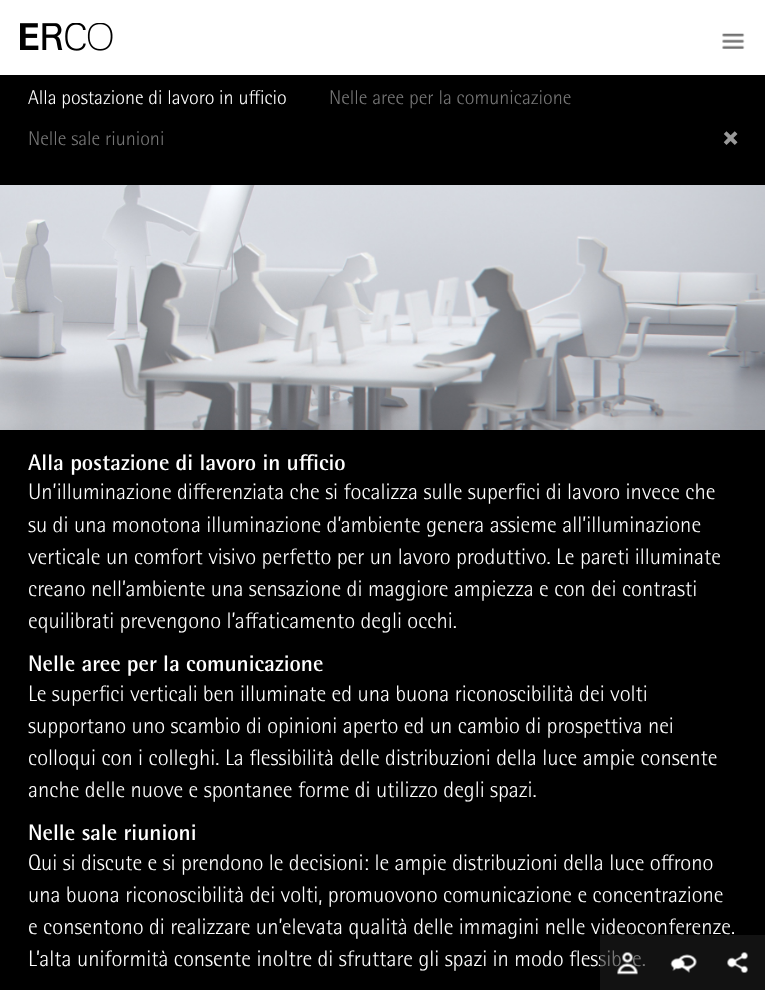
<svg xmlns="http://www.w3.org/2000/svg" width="765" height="990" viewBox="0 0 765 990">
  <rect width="100%" height="100%" fill="#000000"/>
  <rect x="0" y="0" width="765" height="75" fill="#ffffff"/>
  <image x="20" y="23" width="93" height="28" href="img1.png"/>
  <image x="722" y="33" width="23" height="16" href="img2.png"/>
  <text x="28" y="104" font-family="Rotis" font-size="20" font-weight="300" fill="#ffffff">Alla postazione di lavoro in ufficio</text>
  <text x="329" y="104" font-family="Rotis" font-size="20" font-weight="300" fill="#777777">Nelle aree per la comunicazione</text>
  <text x="28" y="145" font-family="Rotis" font-size="20" font-weight="300" fill="#777777">Nelle sale riunioni</text>
  <image x="723" y="131" width="15" height="14" href="img3.png"/>
  <image x="0" y="185" width="765" height="245" href="img4.png"/>
  <text x="28" y="470" font-family="Rotis" font-size="22.5" font-weight="bold" fill="#ffffff">Alla postazione di lavoro in ufficio</text>
  <text x="28" y="499" font-family="Rotis" font-size="22.5" font-weight="300" fill="#ffffff">Un’illuminazione differenziata che si focalizza sulle superfici di lavoro invece che</text>
  <text x="28" y="532" font-family="Rotis" font-size="22.5" font-weight="300" fill="#ffffff">su di una monotona illuminazione d’ambiente genera assieme all’illuminazione</text>
  <text x="28" y="564" font-family="Rotis" font-size="22.5" font-weight="300" fill="#ffffff">verticale un comfort visivo perfetto per un lavoro produttivo. Le pareti illuminate</text>
  <text x="28" y="596" font-family="Rotis" font-size="22.5" font-weight="300" fill="#ffffff">creano nell’ambiente una sensazione di maggiore ampiezza e con dei contrasti</text>
  <text x="28" y="628" font-family="Rotis" font-size="22.5" font-weight="300" fill="#ffffff">equilibrati prevengono l’affaticamento degli occhi.</text>
  <text x="28" y="671" font-family="Rotis" font-size="22.5" font-weight="bold" fill="#ffffff">Nelle aree per la comunicazione</text>
  <text x="28" y="701" font-family="Rotis" font-size="22.5" font-weight="300" fill="#ffffff">Le superfici verticali ben illuminate ed una buona riconoscibilità dei volti</text>
  <text x="28" y="733" font-family="Rotis" font-size="22.5" font-weight="300" fill="#ffffff">supportano uno scambio di opinioni aperto ed un cambio di prospettiva nei</text>
  <text x="28" y="765" font-family="Rotis" font-size="22.5" font-weight="300" fill="#ffffff">colloqui con i colleghi. La flessibilità delle distribuzioni della luce ampie consente</text>
  <text x="28" y="797" font-family="Rotis" font-size="22.5" font-weight="300" fill="#ffffff">anche delle nuove e spontanee forme di utilizzo degli spazi.</text>
  <text x="28" y="840" font-family="Rotis" font-size="22.5" font-weight="bold" fill="#ffffff">Nelle sale riunioni</text>
  <text x="28" y="870" font-family="Rotis" font-size="22.5" font-weight="300" fill="#ffffff">Qui si discute e si prendono le decisioni: le ampie distribuzioni della luce offrono</text>
  <text x="28" y="902" font-family="Rotis" font-size="22.5" font-weight="300" fill="#ffffff">una buona riconoscibilità dei volti, promuovono comunicazione e concentrazione</text>
  <text x="28" y="934" font-family="Rotis" font-size="22.5" font-weight="300" fill="#ffffff">e consentono di realizzare un’elevata qualità delle immagini nelle videoconferenze.</text>
  <text x="28" y="966" font-family="Rotis" font-size="22.5" font-weight="300" fill="#ffffff">L’alta uniformità consente inoltre di sfruttare gli spazi in modo flessib</text>
  <text x="632" y="966" font-family="Rotis" font-size="22.5" font-weight="300" fill="#ffffff">e.</text>
  <rect x="600" y="935" width="55" height="55" fill="#1e1e1e" fill-opacity="0.6"/>
  <image x="617" y="952" width="21" height="23" href="img5.png"/>
  <rect x="655" y="935" width="110" height="55" fill="#121212"/>
  <image x="670" y="954" width="27" height="19" href="img6.png"/>
  <image x="727" y="952" width="21" height="21" href="img7.png"/>
</svg>
